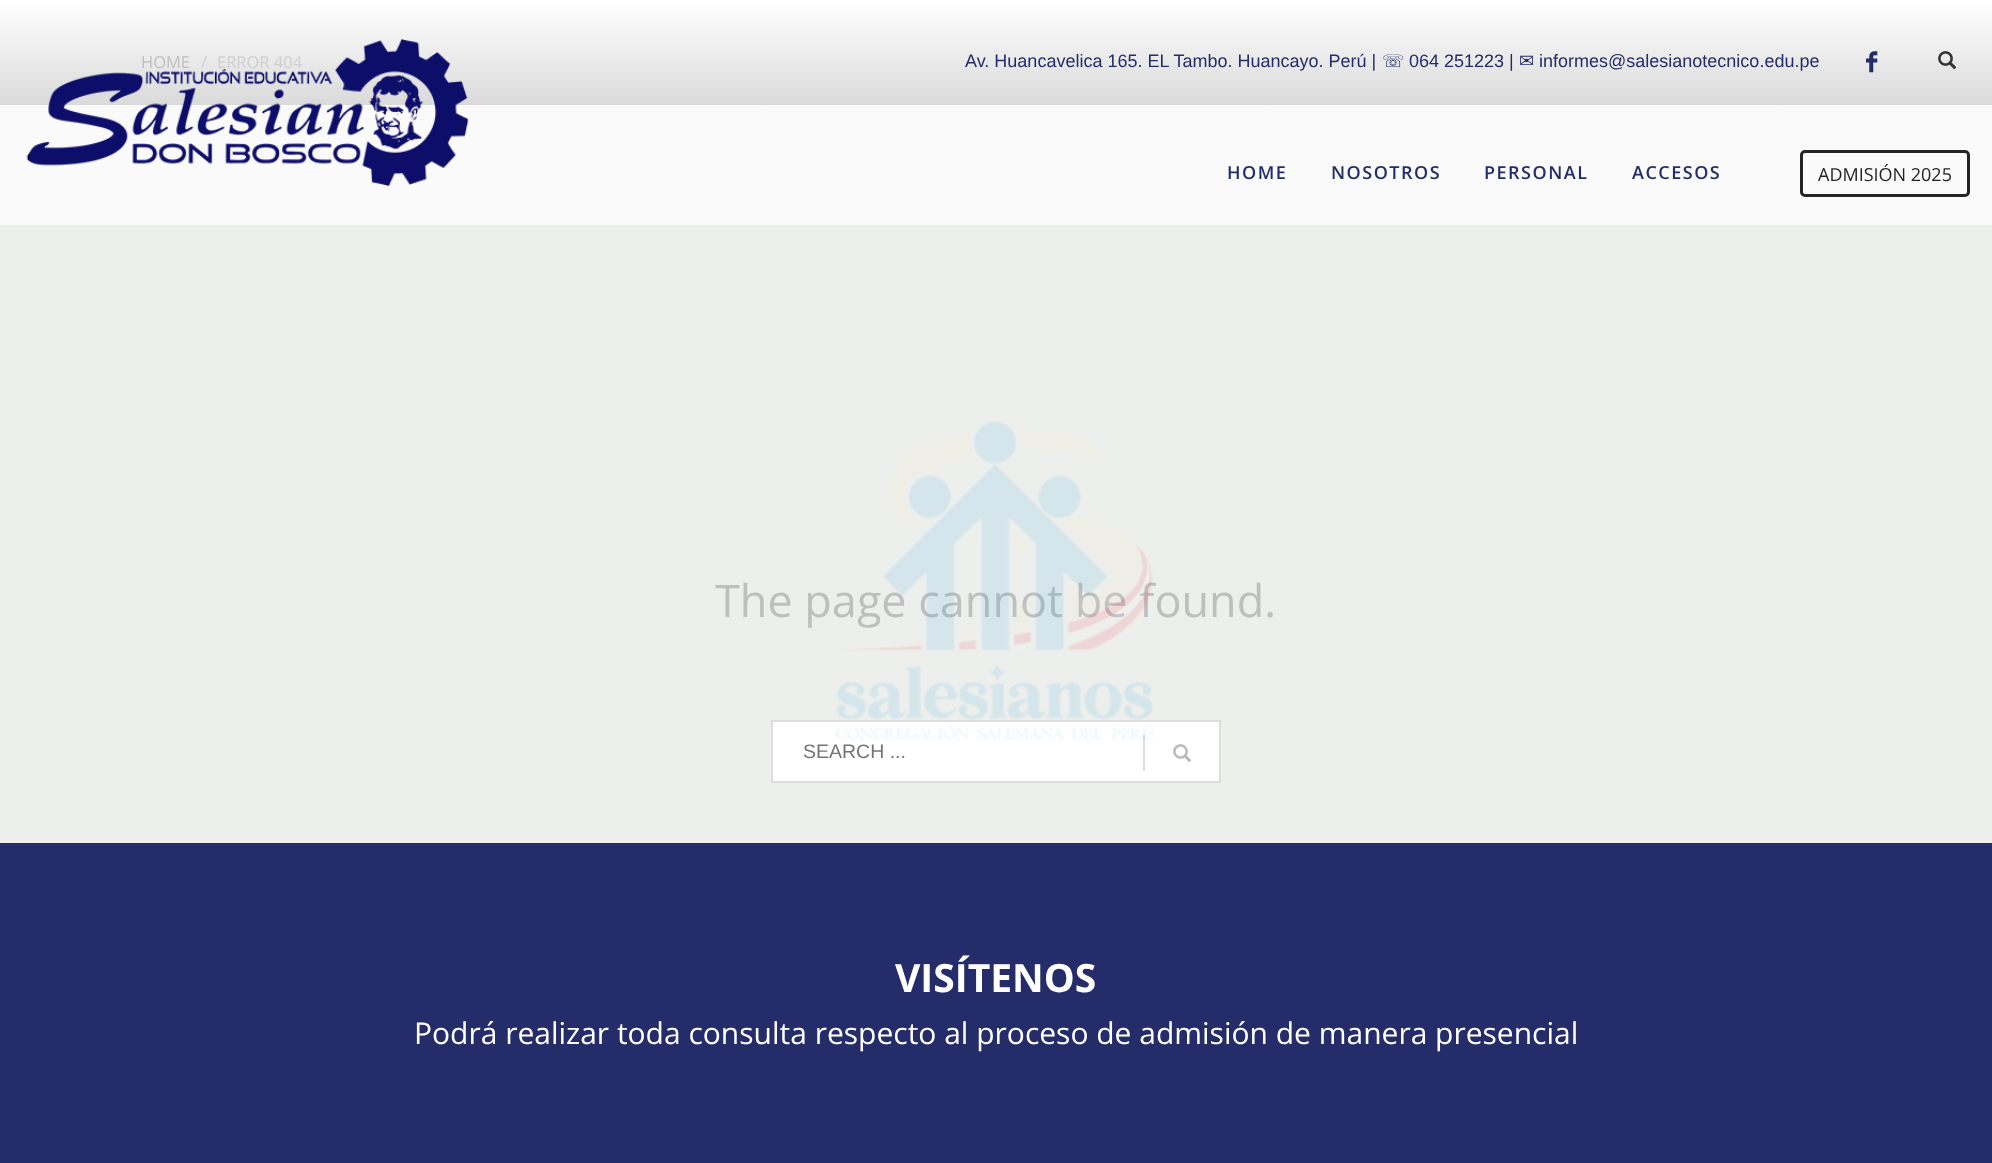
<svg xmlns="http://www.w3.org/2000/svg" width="1992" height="1163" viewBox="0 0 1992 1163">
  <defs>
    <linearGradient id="g1" gradientUnits="userSpaceOnUse" x1="996" y1="0" x2="996" y2="105"><stop offset="0" stop-color="#ffffff"/><stop offset="1" stop-color="#dadada"/></linearGradient>
  </defs>
  <rect width="100%" height="100%" fill="#edefed"/>
  <rect x="0" y="105" width="1992" height="120" fill="#fafafa"/>
  <rect x="0" y="0" width="1992" height="105" fill="url(#g1)"/>
  <text x="141" y="68" font-family="Open Sans" font-size="16.5" fill="#bfbfbf">HOME</text>
  <text x="201" y="68" font-family="Open Sans" font-size="16.5" fill="#cfcfcf">/</text>
  <text x="217" y="68" font-family="Open Sans" font-size="16.5" fill="#cfcfcf">ERROR 404</text>
  <image x="26" y="39" width="443" height="148" href="img1.png"/>
  <text x="965" y="67" font-family="Liberation Sans" font-size="18" fill="#242d69">Av. Huancavelica 165. EL Tambo. Huancayo. Perú |</text>
  <text x="1382" y="67" font-family="DejaVu Sans" font-size="18" fill="#242d69">☏</text>
  <text x="1409" y="67" font-family="Liberation Sans" font-size="18" fill="#242d69">064 251223 |</text>
  <text x="1519" y="67" font-family="DejaVu Sans" font-size="18" fill="#242d69">✉</text>
  <text x="1539" y="67" font-family="Liberation Sans" font-size="18" fill="#242d69">informes@salesianotecnico.edu.pe</text>
  <image x="1866" y="51" width="12" height="22" href="img2.png"/>
  <image x="1938" y="51" width="19" height="19" href="img3.png"/>
  <text x="1227" y="179" font-family="Open Sans" font-size="18" font-weight="600" letter-spacing="1.5" fill="#242d69">HOME</text>
  <text x="1331" y="179" font-family="Open Sans" font-size="18" font-weight="600" letter-spacing="1.5" fill="#242d69">NOSOTROS</text>
  <text x="1484" y="179" font-family="Open Sans" font-size="18" font-weight="600" letter-spacing="1.5" fill="#242d69">PERSONAL</text>
  <text x="1632" y="179" font-family="Open Sans" font-size="18" font-weight="600" letter-spacing="1.5" fill="#242d69">ACCESOS</text>
  <rect x="1801.5" y="151.5" width="167" height="44" rx="3.5" fill="none" stroke="#242424" stroke-width="3"/>
  <text x="1818" y="181" font-family="Open Sans" font-size="18" fill="#242424">ADMISIÓN 2025</text>
  <text x="715" y="617" font-family="Open Sans" font-size="45" fill="#bfbfbf">The page cannot be found.</text>
  <rect x="772" y="721" width="448" height="61" fill="#ffffff" stroke="#dddddd" stroke-width="2"/>
  <text x="803" y="758" font-family="Liberation Sans" font-size="19.5" fill="#757575">SEARCH ...</text>
  <rect x="1143" y="735" width="2" height="36" fill="#dddddd"/>
  <image x="1173" y="744" width="18" height="18" href="img4.png"/>
  <rect x="0" y="843" width="1992" height="320" fill="#242d69"/>
  <text x="895" y="992" font-family="Open Sans" font-size="39" font-weight="bold" fill="#ffffff">VISÍTENOS</text>
  <text x="414" y="1044" font-family="Open Sans" font-size="30" fill="#ffffff">Podrá realizar toda consulta respecto al proceso de admisión de manera presencial</text>
  <image x="835" y="421" width="319" height="320" href="img5.png"/>
</svg>
